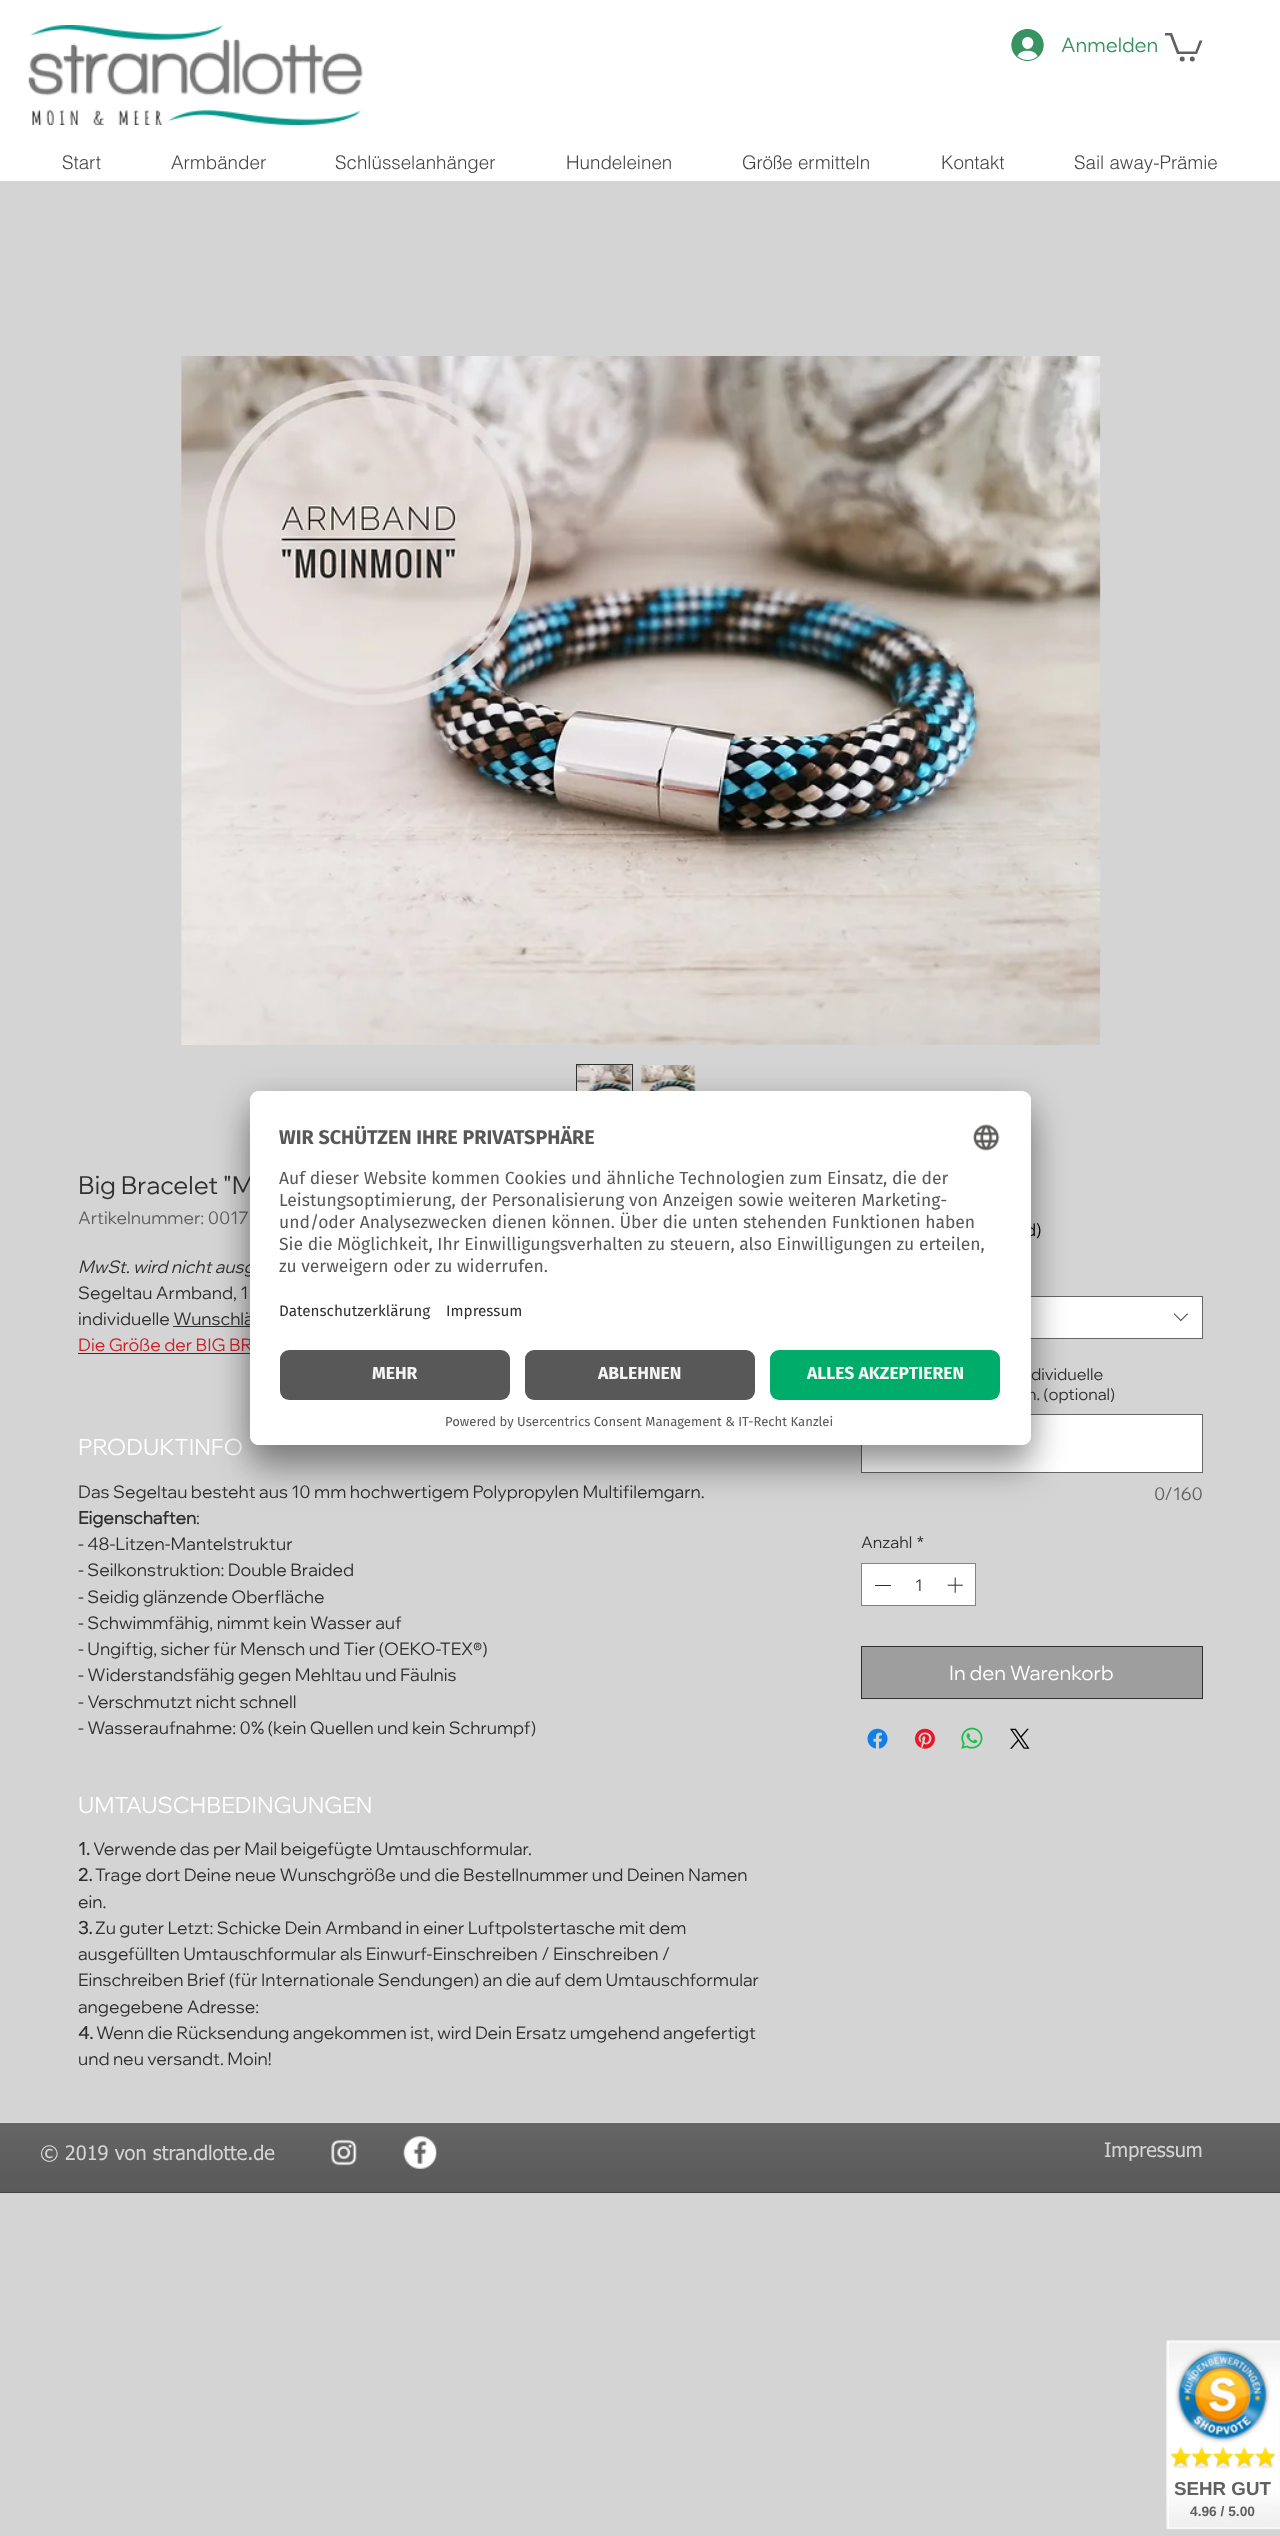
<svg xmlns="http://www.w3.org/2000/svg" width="1280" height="2536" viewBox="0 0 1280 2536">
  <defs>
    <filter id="blur1" x="-50%" y="-200%" width="200%" height="500%"><feGaussianBlur stdDeviation="17.5"/></filter>
    <filter id="blur2" x="-50%" y="-200%" width="200%" height="500%"><feGaussianBlur stdDeviation="16"/></filter>
    <clipPath id="clip1"><rect x="250" y="1091" width="781" height="354" rx="9"/></clipPath>
    <clipPath id="clip2"><path d="M259 1091H1022C1027 1091 1031 1095 1031 1100V1340H250V1100C250 1095 254 1091 259 1091Z"/></clipPath>
  </defs>
  <rect width="100%" height="100%" fill="#d4d4d4"/>
  <rect x="0" y="0" width="1280" height="181" fill="#ffffff"/>
  <image x="28" y="25" width="335" height="100" href="img1.png"/>
  <image x="1011" y="29" width="33" height="32" href="img2.png"/>
  <text x="1061" y="52" font-family="Wix Madefor Display" font-size="20" fill="#379461">Anmelden</text>
  <path d="M1202.5 40.5L1197 54H1177L1170 35.5H1165V33H1172L1179 51.5H1195.5L1199.5 40.5" fill="#606060"/>
  <circle cx="1192.3" cy="59" r="2.5" fill="#606060"/>
  <circle cx="1182.2" cy="59" r="2.5" fill="#606060"/>
  <text x="62" y="169" font-family="helvetica" font-size="18.75" font-weight="300" fill="#444444">Start</text>
  <text x="171" y="169" font-family="helvetica" font-size="18.75" font-weight="300" fill="#444444">Armbänder</text>
  <text x="335" y="169" font-family="helvetica" font-size="18.75" font-weight="300" fill="#444444">Schlüsselanhänger</text>
  <text x="566" y="169" font-family="helvetica" font-size="18.75" font-weight="300" fill="#444444">Hundeleinen</text>
  <text x="742" y="169" font-family="helvetica" font-size="18.75" font-weight="300" fill="#444444">Größe ermitteln</text>
  <text x="941" y="169" font-family="helvetica" font-size="18.75" font-weight="300" fill="#444444">Kontakt</text>
  <text x="1074" y="169" font-family="helvetica" font-size="18.75" font-weight="300" fill="#444444">Sail away-Prämie</text>
  <image x="181" y="356" width="920" height="689" href="img3.png"/>
  <rect x="576.5" y="1064.5" width="56" height="55" fill="none" stroke="#303030"/>
  <image x="577" y="1065" width="55" height="26" href="img4.png"/>
  <image x="640" y="1065" width="56" height="26" href="img5.png"/>
  <text x="78" y="1194" font-family="Wix Madefor Display" font-size="25" fill="#303030">Big Bracelet "M</text>
  <text x="78" y="1224" font-family="Wix Madefor Display" font-size="17.5" fill="#606060">Artikelnummer: 0017</text>
  <text x="78" y="1273" font-family="Wix Madefor Display" font-size="17.5" font-style="italic" fill="#303030">MwSt. wird nicht ausg</text>
  <text x="78" y="1299" font-family="Wix Madefor Display" font-size="17.5" fill="#303030">Segeltau Armband, 1</text>
  <text x="78" y="1325" font-family="Wix Madefor Display" font-size="17.5" fill="#303030">individuelle Wunschlä</text>
  <rect x="173" y="1326" width="77" height="1" fill="#303030"/>
  <text x="78" y="1351" font-family="Wix Madefor Display" font-size="17.5" fill="#cb2026">Die Größe der BIG BR</text>
  <rect x="78" y="1353" width="172" height="1" fill="#303030"/>
  <text x="78" y="1455" font-family="Wix Madefor Display" font-size="22.5" fill="#ffffff">PRODUKTINFO</text>
  <text x="78" y="1498" font-family="Wix Madefor Display" font-size="17.5" fill="#303030">Das Segeltau besteht aus 10 mm hochwertigem Polypropylen Multifilemgarn.</text>
  <text x="78" y="1524" font-family="Wix Madefor Display" font-size="17.5" font-weight="bold" fill="#303030">Eigenschaften</text>
  <text x="196" y="1524" font-family="Wix Madefor Display" font-size="17.5" fill="#303030">:</text>
  <text x="78" y="1550" font-family="Wix Madefor Display" font-size="17.5" fill="#303030">- 48-Litzen-Mantelstruktur</text>
  <text x="78" y="1576" font-family="Wix Madefor Display" font-size="17.5" fill="#303030">- Seilkonstruktion: Double Braided</text>
  <text x="78" y="1603" font-family="Wix Madefor Display" font-size="17.5" fill="#303030">- Seidig glänzende Oberfläche</text>
  <text x="78" y="1629" font-family="Wix Madefor Display" font-size="17.5" fill="#303030">- Schwimmfähig, nimmt kein Wasser auf</text>
  <text x="78" y="1655" font-family="Wix Madefor Display" font-size="17.5" fill="#303030">- Ungiftig, sicher für Mensch und Tier (OEKO-TEX®)</text>
  <text x="78" y="1681" font-family="Wix Madefor Display" font-size="17.5" fill="#303030">- Widerstandsfähig gegen Mehltau und Fäulnis</text>
  <text x="78" y="1708" font-family="Wix Madefor Display" font-size="17.5" fill="#303030">- Verschmutzt nicht schnell</text>
  <text x="78" y="1734" font-family="Wix Madefor Display" font-size="17.5" fill="#303030">- Wasseraufnahme: 0% (kein Quellen und kein Schrumpf)</text>
  <text x="78" y="1813" font-family="Wix Madefor Display" font-size="22.5" fill="#ffffff">UMTAUSCHBEDINGUNGEN</text>
  <text x="78" y="1855" font-family="Wix Madefor Display" font-size="17.5" font-weight="bold" fill="#303030">1.</text>
  <text x="93" y="1855" font-family="Wix Madefor Display" font-size="17.5" fill="#303030">Verwende das per Mail beigefügte Umtauschformular.</text>
  <text x="78" y="1881" font-family="Wix Madefor Display" font-size="17.5" font-weight="bold" fill="#303030">2.</text>
  <text x="95" y="1881" font-family="Wix Madefor Display" font-size="17.5" fill="#303030">Trage dort Deine neue Wunschgröße und die Bestellnummer und Deinen Namen</text>
  <text x="78" y="1908" font-family="Wix Madefor Display" font-size="17.5" fill="#303030">ein.</text>
  <text x="78" y="1934" font-family="Wix Madefor Display" font-size="17.5" font-weight="bold" fill="#303030">3.</text>
  <text x="95" y="1934" font-family="Wix Madefor Display" font-size="17.5" fill="#303030">Zu guter Letzt: Schicke Dein Armband in einer Luftpolstertasche mit dem</text>
  <text x="78" y="1960" font-family="Wix Madefor Display" font-size="17.5" fill="#303030">ausgefüllten Umtauschformular als Einwurf-Einschreiben / Einschreiben /</text>
  <text x="78" y="1986" font-family="Wix Madefor Display" font-size="17.5" fill="#303030">Einschreiben Brief (für Internationale Sendungen) an die auf dem Umtauschformular</text>
  <text x="78" y="2013" font-family="Wix Madefor Display" font-size="17.5" fill="#303030">angegebene Adresse:</text>
  <text x="78" y="2039" font-family="Wix Madefor Display" font-size="17.5" font-weight="bold" fill="#303030">4.</text>
  <text x="96" y="2039" font-family="Wix Madefor Display" font-size="17.5" fill="#303030">Wenn die Rücksendung angekommen ist, wird Dein Ersatz umgehend angefertigt</text>
  <text x="78" y="2065" font-family="Wix Madefor Display" font-size="17.5" fill="#303030">und neu versandt. Moin!</text>
  <text x="1025" y="1236" font-family="Wix Madefor Display" font-size="17.5" fill="#000000">d)</text>
  <rect x="1031" y="1297" width="171" height="41" fill="#ffffff"/>
  <rect x="861.5" y="1296.5" width="341" height="42" fill="none" stroke="#666666"/>
  <image x="1173" y="1313" width="15" height="9" href="img6.png"/>
  <text x="1031" y="1380" font-family="Wix Madefor Display" font-size="16.25" fill="#303030">dividuelle</text>
  <text x="1027" y="1400" font-family="Wix Madefor Display" font-size="16.25" fill="#303030">n. (optional)</text>
  <rect x="861.5" y="1414.5" width="341" height="58" fill="#ffffff" stroke="#666666"/>
  <text x="1154" y="1500" font-family="Wix Madefor Display" font-size="17.5" fill="#606060">0/160</text>
  <text x="861" y="1548" font-family="Wix Madefor Display" font-size="16.25" fill="#303030">Anzahl</text>
  <text x="917" y="1548" font-family="Wix Madefor Display" font-size="16.25" fill="#303030">*</text>
  <rect x="861.5" y="1563.5" width="114" height="42" fill="#ffffff" stroke="#838383"/>
  <rect x="875" y="1585" width="16" height="1" fill="#303030"/>
  <text x="915" y="1591" font-family="Wix Madefor Display" font-size="16.25" fill="#303030">1</text>
  <image x="947" y="1577" width="16" height="16" href="img7.png"/>
  <rect x="861.5" y="1646.5" width="341" height="52" fill="#9e9e9e" stroke="#303030"/>
  <text x="949" y="1680" font-family="Wix Madefor Display" font-size="20" fill="#ffffff">In den Warenkorb</text>
  <image x="867" y="1728" width="21" height="21" href="img8.png"/>
  <image x="915" y="1728" width="20" height="21" href="img9.png"/>
  <image x="961" y="1727" width="22" height="22" href="img10.png"/>
  <image x="1010" y="1728" width="20" height="21" href="img11.png"/>
  <rect x="0" y="2123" width="1280" height="70" fill="#303030"/>
  <image x="0" y="2122" width="1280" height="71" href="img12.png"/>
  <text x="40" y="2160" font-family="tahoma" font-size="20" fill="#d4d4d4">© 2019 von strandlotte.de</text>
  <image x="331" y="2139" width="26" height="27" href="img13.png"/>
  <image x="403" y="2136" width="34" height="33" href="img14.png"/>
  <text x="1104" y="2157" font-family="tahoma" font-size="20" fill="#d4d4d4">Impressum</text>
  <rect x="250" y="1116" width="781" height="354" rx="9" fill="#000000" fill-opacity="0.3" filter="url(#blur1)"/>
  <rect x="250" y="1098" width="781" height="353" rx="9" fill="#000000" fill-opacity="0.22" filter="url(#blur2)"/>
  <rect x="250" y="1091" width="781" height="354" rx="9" fill="#ffffff"/>
  <g clip-path="url(#clip1)">
    <g clip-path="url(#clip2)">
      <rect x="250" y="1093" width="781" height="247" fill="#ffffff"/>
    </g>
  </g>
  <text x="279" y="1144" font-family="Fira Sans" font-size="19.75" font-weight="bold" fill="#595857">WIR SCHÜTZEN IHRE PRIVATSPHÄRE</text>
  <image x="973" y="1124" width="27" height="27" href="img15.png"/>
  <text x="279" y="1184" font-family="Fira Sans" font-size="17.5" fill="#595857">Auf dieser Website kommen Cookies und ähnliche Technologien zum Einsatz, die der</text>
  <text x="279" y="1206" font-family="Fira Sans" font-size="17.5" fill="#595857">Leistungsoptimierung, der Personalisierung von Anzeigen sowie weiteren Marketing-</text>
  <text x="279" y="1228" font-family="Fira Sans" font-size="17.5" fill="#595857">und/oder Analysezwecken dienen können. Über die unten stehenden Funktionen haben</text>
  <text x="279" y="1250" font-family="Fira Sans" font-size="17.5" fill="#595857">Sie die Möglichkeit, Ihr Einwilligungsverhalten zu steuern, also Einwilligungen zu erteilen,</text>
  <text x="279" y="1272" font-family="Fira Sans" font-size="17.5" fill="#595857">zu verweigern oder zu widerrufen.</text>
  <text x="279" y="1316" font-family="Fira Sans" font-size="15.25" fill="#303030">Datenschutzerklärung</text>
  <text x="446" y="1316" font-family="Fira Sans" font-size="15.25" fill="#303030">Impressum</text>
  <path d="M250 1340H1031V1436C1031 1441 1027 1445 1022 1445H259C254 1445 250 1441 250 1436Z" fill="#ffffff"/>
  <rect x="280" y="1350" width="230" height="50" rx="9" fill="#585858"/>
  <text x="372" y="1379" font-family="Fira Sans" font-size="17.5" font-weight="bold" fill="#f5f5f5">MEHR</text>
  <rect x="525" y="1350" width="230" height="50" rx="9" fill="#585858"/>
  <text x="598" y="1379" font-family="Fira Sans" font-size="17.5" font-weight="bold" fill="#f5f5f5">ABLEHNEN</text>
  <rect x="770" y="1350" width="230" height="50" rx="9" fill="#00ac6a"/>
  <text x="807" y="1379" font-family="Fira Sans" font-size="17.5" font-weight="bold" fill="#f5f5f5">ALLES AKZEPTIEREN</text>
  <text x="445" y="1426" font-family="Fira Sans" font-size="13.1" fill="#595857">Powered by Usercentrics Consent Management &amp; IT-Recht Kanzlei</text>
  <image x="1166" y="2340" width="114" height="190" href="img16.png"/>
  <image x="1170" y="2446" width="106" height="21" href="img17.png"/>
  <text x="1174" y="2495" font-family="Liberation Sans" font-size="18.75" font-weight="bold" fill="#606060">SEHR GUT</text>
  <text x="1190" y="2516" font-family="Liberation Sans" font-size="13.75" font-weight="bold" fill="#606060">4.96 / 5.00</text>
</svg>
